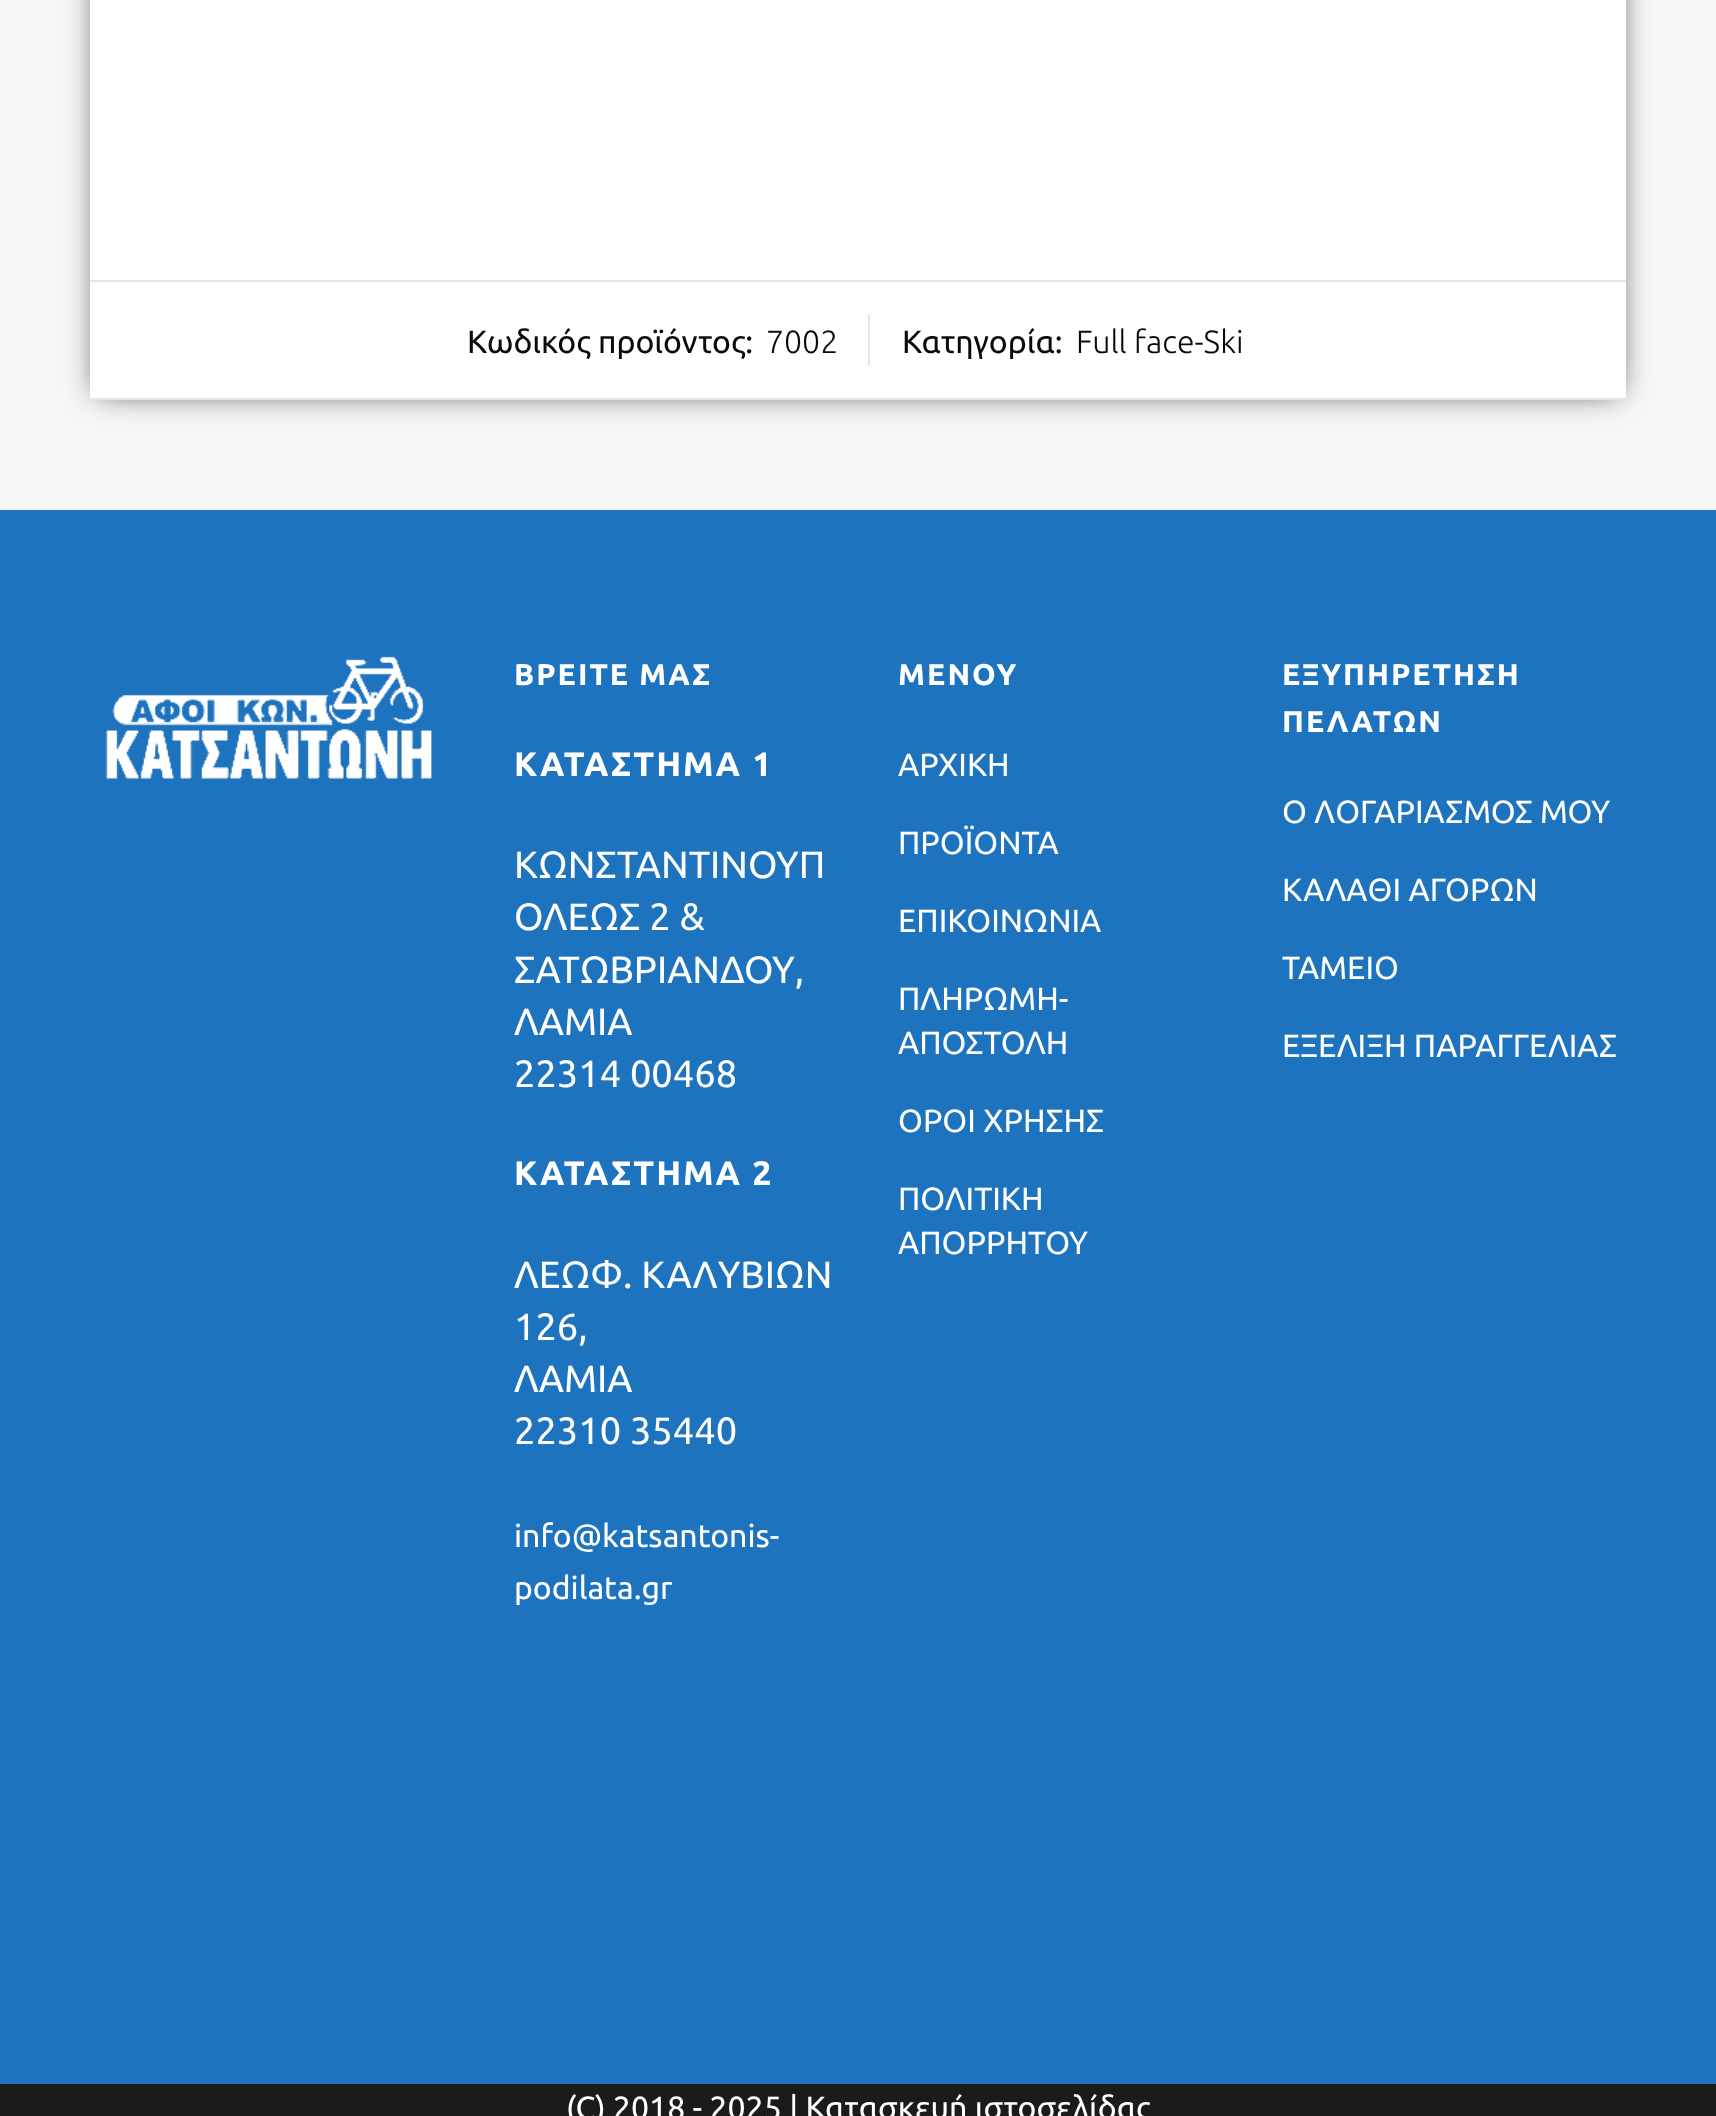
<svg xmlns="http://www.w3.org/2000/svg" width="1716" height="2116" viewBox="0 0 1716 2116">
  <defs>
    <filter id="blur1" x="-50%" y="-200%" width="200%" height="500%"><feGaussianBlur stdDeviation="15"/></filter>
  </defs>
  <rect width="100%" height="100%" fill="#f6f6f6"/>
  <rect x="98" y="-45" width="1520" height="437" fill="#000000" fill-opacity="0.75" filter="url(#blur1)"/>
  <rect x="90" y="0" width="1536" height="398" fill="#ffffff"/>
  <rect x="90" y="280" width="1536" height="2" fill="#e5e5e5"/>
  <rect x="90" y="398" width="1536" height="2" fill="#e5e5e5"/>
  <rect x="868" y="314" width="2" height="52" fill="#e5e5e5"/>
  <text x="467" y="353" font-family="Ubuntu" font-size="32" fill="#0a0a0a">Κωδικός προϊόντος:</text>
  <text x="766" y="353" font-family="Ubuntu" font-size="32" font-weight="300" fill="#0a0a0a">7002</text>
  <text x="902" y="353" font-family="Ubuntu" font-size="32" fill="#0a0a0a">Κατηγορία:</text>
  <text x="1076" y="353" font-family="Ubuntu" font-size="32" font-weight="300" fill="#0a0a0a">Full face-Ski</text>
  <rect x="0" y="510" width="1716" height="1574" fill="#1e73be"/>
  <image x="105" y="656" width="327" height="123" href="img1.png"/>
  <text x="514" y="685" font-family="Ubuntu" font-size="30" font-weight="bold" letter-spacing="2" fill="#ffffff">ΒΡΕΙΤΕ ΜΑΣ</text>
  <text x="514" y="776" font-family="Ubuntu" font-size="34" font-weight="bold" letter-spacing="2" fill="#ffffff">ΚΑΤΑΣΤΗΜΑ 1</text>
  <text x="514" y="878" font-family="Ubuntu" font-size="38" fill="#ffffff">ΚΩΝΣΤΑΝΤΙΝΟΥΠ</text>
  <text x="514" y="930" font-family="Ubuntu" font-size="38" fill="#ffffff">ΟΛΕΩΣ 2 &amp;</text>
  <text x="514" y="983" font-family="Ubuntu" font-size="38" fill="#ffffff">ΣΑΤΩΒΡΙΑΝΔΟΥ,</text>
  <text x="514" y="1035" font-family="Ubuntu" font-size="38" fill="#ffffff">ΛΑΜΙΑ</text>
  <text x="514" y="1087" font-family="Ubuntu" font-size="38" fill="#ffffff">22314 00468</text>
  <text x="514" y="1185" font-family="Ubuntu" font-size="34" font-weight="bold" letter-spacing="2" fill="#ffffff">ΚΑΤΑΣΤΗΜΑ 2</text>
  <text x="514" y="1288" font-family="Ubuntu" font-size="38" fill="#ffffff">ΛΕΩΦ. ΚΑΛΥΒΙΩΝ</text>
  <text x="514" y="1340" font-family="Ubuntu" font-size="38" fill="#ffffff">126,</text>
  <text x="514" y="1392" font-family="Ubuntu" font-size="38" fill="#ffffff">ΛΑΜΙΑ</text>
  <text x="514" y="1444" font-family="Ubuntu" font-size="38" fill="#ffffff">22310 35440</text>
  <text x="514" y="1547" font-family="Ubuntu" font-size="32" fill="#ffffff">info@katsantonis-</text>
  <text x="514" y="1599" font-family="Ubuntu" font-size="32" fill="#ffffff">podilata.gr</text>
  <text x="898" y="685" font-family="Ubuntu" font-size="30" font-weight="bold" letter-spacing="2" fill="#ffffff">ΜΕΝΟΥ</text>
  <text x="898" y="776" font-family="Ubuntu" font-size="32" fill="#ffffff">ΑΡΧΙΚΗ</text>
  <text x="898" y="854" font-family="Ubuntu" font-size="32" fill="#ffffff">ΠΡΟΪΟΝΤΑ</text>
  <text x="898" y="932" font-family="Ubuntu" font-size="32" fill="#ffffff">ΕΠΙΚΟΙΝΩΝΙΑ</text>
  <text x="898" y="1010" font-family="Ubuntu" font-size="32" fill="#ffffff">ΠΛΗΡΩΜΗ-</text>
  <text x="898" y="1054" font-family="Ubuntu" font-size="32" fill="#ffffff">ΑΠΟΣΤΟΛΗ</text>
  <text x="898" y="1132" font-family="Ubuntu" font-size="32" fill="#ffffff">ΟΡΟΙ ΧΡΗΣΗΣ</text>
  <text x="898" y="1210" font-family="Ubuntu" font-size="32" fill="#ffffff">ΠΟΛΙΤΙΚΗ</text>
  <text x="898" y="1254" font-family="Ubuntu" font-size="32" fill="#ffffff">ΑΠΟΡΡΗΤΟΥ</text>
  <text x="1282" y="685" font-family="Ubuntu" font-size="30" font-weight="bold" letter-spacing="2" fill="#ffffff">ΕΞΥΠΗΡΕΤΗΣΗ</text>
  <text x="1282" y="732" font-family="Ubuntu" font-size="30" font-weight="bold" letter-spacing="2" fill="#ffffff">ΠΕΛΑΤΩΝ</text>
  <text x="1282" y="823" font-family="Ubuntu" font-size="32" fill="#ffffff">Ο ΛΟΓΑΡΙΑΣΜΟΣ ΜΟΥ</text>
  <text x="1282" y="901" font-family="Ubuntu" font-size="32" fill="#ffffff">ΚΑΛΑΘΙ ΑΓΟΡΩΝ</text>
  <text x="1282" y="979" font-family="Ubuntu" font-size="32" fill="#ffffff">ΤΑΜΕΙΟ</text>
  <text x="1282" y="1057" font-family="Ubuntu" font-size="32" fill="#ffffff">ΕΞΕΛΙΞΗ ΠΑΡΑΓΓΕΛΙΑΣ</text>
  <rect x="0" y="2084" width="1716" height="32" fill="#1b1b1b"/>
  <text x="566" y="2119" font-family="Ubuntu" font-size="32" fill="#ffffff">(C) 2018 - 2025 | Κατασκευή ιστοσελίδας</text>
</svg>
